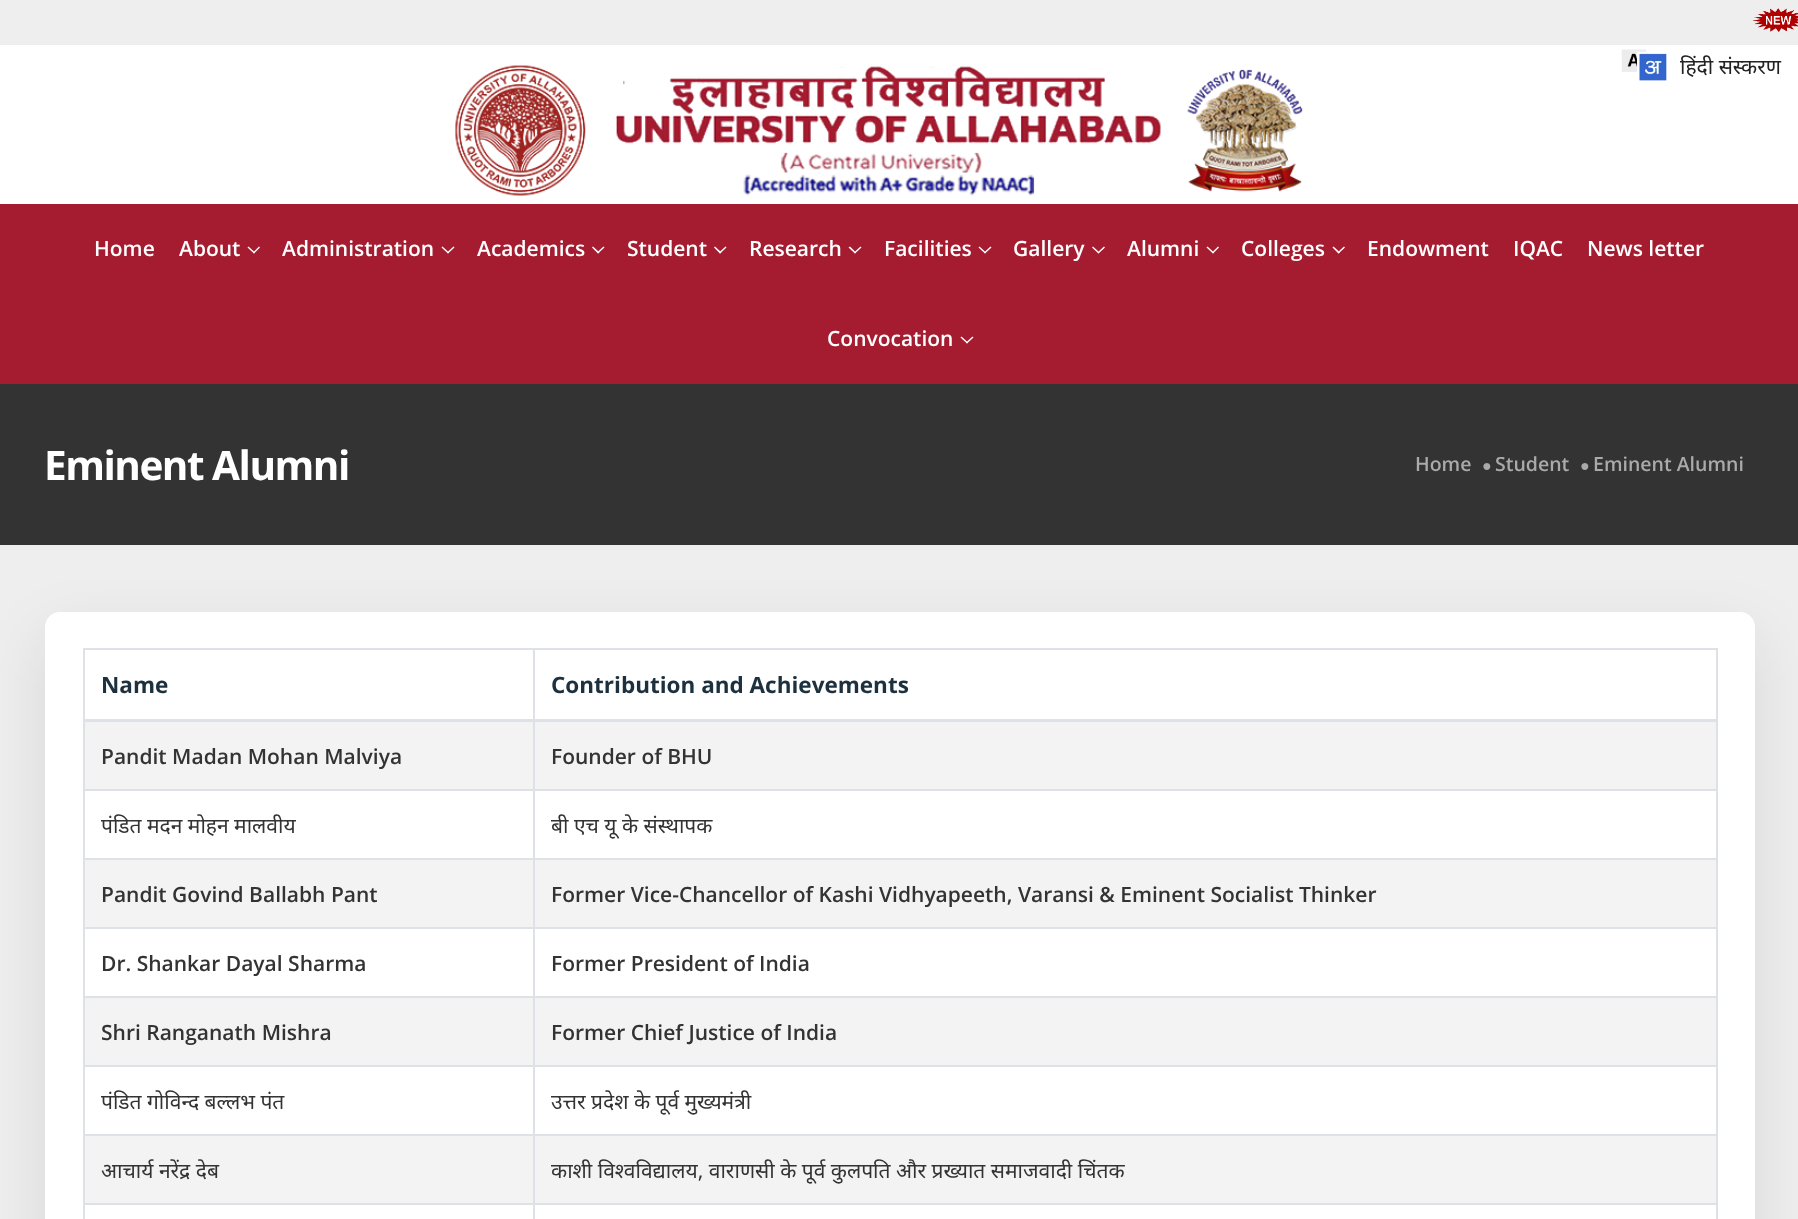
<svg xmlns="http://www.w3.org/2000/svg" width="1798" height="1219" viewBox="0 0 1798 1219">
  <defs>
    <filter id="blur1" x="-50%" y="-200%" width="200%" height="500%"><feGaussianBlur stdDeviation="30"/></filter>
  </defs>
  <rect width="100%" height="100%" fill="#ffffff"/>
  <rect x="0" y="0" width="1798" height="45" fill="#eeeeee"/>
  <image x="1752" y="8" width="46" height="25" href="img1.png"/>
  <image x="455" y="65" width="848" height="131" href="img2.png"/>
  <image x="1621" y="49" width="46" height="32" href="img3.png"/>
  <text x="1680" y="74" font-family="Noto Sans" font-size="21" fill="#222222">हिंदी संस्करण</text>
  <rect x="0" y="204" width="1798" height="180" fill="#a51c30"/>
  <text x="94" y="256" font-family="Open Sans" font-size="21" font-weight="600" fill="#ffffff">Home</text>
  <text x="179" y="256" font-family="Open Sans" font-size="21" font-weight="600" fill="#ffffff">About</text>
  <path d="M259 246.5L260 247.5L254 253.5L253 252.5Z" fill="#ffffff"/>
  <path d="M248.5 246.5L255 252.5L254 253.5L247.5 247.5Z" fill="#ffffff"/>
  <text x="282" y="256" font-family="Open Sans" font-size="21" font-weight="600" fill="#ffffff">Administration</text>
  <path d="M453.5 246.5L454.5 247.5L448 253.5L447 252.5Z" fill="#ffffff"/>
  <path d="M442.5 246.5L449 252.5L448 253.5L441.5 247.5Z" fill="#ffffff"/>
  <text x="477" y="256" font-family="Open Sans" font-size="21" font-weight="600" fill="#ffffff">Academics</text>
  <path d="M603.5 246.5L604.5 247.5L598 253.5L597 252.5Z" fill="#ffffff"/>
  <path d="M593 246.5L599.5 252.5L598 253.5L592 247.5Z" fill="#ffffff"/>
  <text x="627" y="256" font-family="Open Sans" font-size="21" font-weight="600" fill="#ffffff">Student</text>
  <path d="M725.5 246.5L726.5 247.5L720 253.5L719 252.5Z" fill="#ffffff"/>
  <path d="M715 246.5L721.5 252.5L720 253.5L714 247.5Z" fill="#ffffff"/>
  <text x="749" y="256" font-family="Open Sans" font-size="21" font-weight="600" fill="#ffffff">Research</text>
  <path d="M860.5 246.5L861.5 247.5L855 253.5L854 252.5Z" fill="#ffffff"/>
  <path d="M850 246.5L856 252.5L855 253.5L848.5 247.5Z" fill="#ffffff"/>
  <text x="884" y="256" font-family="Open Sans" font-size="21" font-weight="600" fill="#ffffff">Facilities</text>
  <path d="M990.5 246.5L991.5 247.5L985 253.5L984 252.5Z" fill="#ffffff"/>
  <path d="M979.5 246.5L986 252.5L985 253.5L978.5 247.5Z" fill="#ffffff"/>
  <text x="1013" y="256" font-family="Open Sans" font-size="21" font-weight="600" fill="#ffffff">Gallery</text>
  <path d="M1104 246.5L1105 247.5L1098.5 253.5L1097.5 252.5Z" fill="#ffffff"/>
  <path d="M1093 246.5L1099.5 252.5L1098.5 253.5L1092 247.5Z" fill="#ffffff"/>
  <text x="1127" y="256" font-family="Open Sans" font-size="21" font-weight="600" fill="#ffffff">Alumni</text>
  <path d="M1218 246.5L1219 247.5L1213 253.5L1212 252.5Z" fill="#ffffff"/>
  <path d="M1207.5 246.5L1214 252.5L1213 253.5L1206.5 247.5Z" fill="#ffffff"/>
  <text x="1241" y="256" font-family="Open Sans" font-size="21" font-weight="600" fill="#ffffff">Colleges</text>
  <path d="M1344 246.5L1345 247.5L1338.5 253.5L1337.5 252.5Z" fill="#ffffff"/>
  <path d="M1333.5 246.5L1340 252.5L1338.5 253.5L1332.5 247.5Z" fill="#ffffff"/>
  <text x="1367" y="256" font-family="Open Sans" font-size="21" font-weight="600" fill="#ffffff">Endowment</text>
  <text x="1513" y="256" font-family="Open Sans" font-size="21" font-weight="600" fill="#ffffff">IQAC</text>
  <text x="1587" y="256" font-family="Open Sans" font-size="21" font-weight="600" fill="#ffffff">News letter</text>
  <text x="827" y="346" font-family="Open Sans" font-size="21" font-weight="600" fill="#ffffff">Convocation</text>
  <path d="M972.5 336.5L973.5 337.5L967 343.5L966 342.5Z" fill="#ffffff"/>
  <path d="M961.5 336.5L968 342.5L967 343.5L960.5 337.5Z" fill="#ffffff"/>
  <rect x="0" y="545" width="1798" height="674" fill="#eeeeee"/>
  <rect x="45" y="635" width="1710" height="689" rx="15" fill="#000000" fill-opacity="0.1" filter="url(#blur1)"/>
  <rect x="0" y="384" width="1798" height="161" fill="#333333"/>
  <text x="44" y="480" font-family="Open Sans" font-size="40.5" font-weight="bold" letter-spacing="-1.5" fill="#ffffff">Eminent Alumni</text>
  <text x="1415" y="471" font-family="Open Sans" font-size="19.5" font-weight="600" fill="#aaaaaa">Home</text>
  <text x="1482" y="471" font-family="Liberation Sans" font-size="16" font-weight="bold" fill="#aaaaaa">●</text>
  <text x="1495" y="471" font-family="Open Sans" font-size="19.5" font-weight="600" fill="#aaaaaa">Student</text>
  <text x="1580" y="471" font-family="Liberation Sans" font-size="16" font-weight="bold" fill="#aaaaaa">●</text>
  <text x="1593" y="471" font-family="Open Sans" font-size="19.5" font-weight="600" fill="#aaaaaa">Eminent Alumni</text>
  <rect x="45" y="612" width="1710" height="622" rx="15" fill="#ffffff"/>
  <rect x="533" y="648" width="1185" height="2" fill="#dee2e6"/>
  <rect x="85" y="722" width="1631" height="67" fill="#f3f3f3"/>
  <rect x="533" y="789" width="1185" height="2" fill="#dee2e6"/>
  <rect x="533" y="858" width="1185" height="2" fill="#dee2e6"/>
  <rect x="85" y="860" width="1631" height="67" fill="#f3f3f3"/>
  <rect x="533" y="927" width="1185" height="2" fill="#dee2e6"/>
  <rect x="533" y="996" width="1185" height="2" fill="#dee2e6"/>
  <rect x="85" y="998" width="1631" height="67" fill="#f3f3f3"/>
  <rect x="533" y="1065" width="1185" height="2" fill="#dee2e6"/>
  <rect x="533" y="1134" width="1185" height="2" fill="#dee2e6"/>
  <rect x="85" y="1136" width="1631" height="67" fill="#f3f3f3"/>
  <rect x="533" y="1203" width="1185" height="2" fill="#dee2e6"/>
  <rect x="533" y="1203" width="2" height="16" fill="#dee2e6"/>
  <rect x="83" y="1203" width="451" height="2" fill="#dee2e6"/>
  <rect x="533" y="1134" width="2" height="71" fill="#dee2e6"/>
  <rect x="83" y="1134" width="451" height="2" fill="#dee2e6"/>
  <rect x="533" y="1065" width="2" height="71" fill="#dee2e6"/>
  <rect x="83" y="1065" width="451" height="2" fill="#dee2e6"/>
  <rect x="533" y="996" width="2" height="71" fill="#dee2e6"/>
  <rect x="83" y="996" width="451" height="2" fill="#dee2e6"/>
  <rect x="533" y="927" width="2" height="71" fill="#dee2e6"/>
  <rect x="83" y="927" width="451" height="2" fill="#dee2e6"/>
  <rect x="533" y="858" width="2" height="71" fill="#dee2e6"/>
  <rect x="83" y="858" width="451" height="2" fill="#dee2e6"/>
  <rect x="533" y="789" width="2" height="71" fill="#dee2e6"/>
  <rect x="83" y="789" width="451" height="2" fill="#dee2e6"/>
  <rect x="533" y="720" width="2" height="71" fill="#dee2e6"/>
  <rect x="533" y="648" width="2" height="74" fill="#dee2e6"/>
  <rect x="83" y="648" width="451" height="2" fill="#dee2e6"/>
  <rect x="83" y="1203" width="2" height="16" fill="#dee2e6"/>
  <rect x="83" y="1134" width="2" height="71" fill="#dee2e6"/>
  <rect x="83" y="1065" width="2" height="71" fill="#dee2e6"/>
  <rect x="83" y="996" width="2" height="71" fill="#dee2e6"/>
  <rect x="83" y="927" width="2" height="71" fill="#dee2e6"/>
  <rect x="83" y="858" width="2" height="71" fill="#dee2e6"/>
  <rect x="83" y="720" width="2" height="140" fill="#dee2e6"/>
  <rect x="83" y="648" width="2" height="74" fill="#dee2e6"/>
  <text x="101" y="693" font-family="Open Sans" font-size="22.5" font-weight="bold" fill="#1c303e">Name</text>
  <rect x="1716" y="1203" width="2" height="16" fill="#dee2e6"/>
  <rect x="1716" y="1134" width="2" height="71" fill="#dee2e6"/>
  <rect x="1716" y="1065" width="2" height="71" fill="#dee2e6"/>
  <rect x="1716" y="996" width="2" height="71" fill="#dee2e6"/>
  <rect x="1716" y="927" width="2" height="71" fill="#dee2e6"/>
  <rect x="1716" y="858" width="2" height="71" fill="#dee2e6"/>
  <rect x="1716" y="720" width="2" height="140" fill="#dee2e6"/>
  <rect x="1716" y="648" width="2" height="74" fill="#dee2e6"/>
  <rect x="83" y="719" width="1635" height="3" fill="#dee2e6"/>
  <text x="551" y="693" font-family="Open Sans" font-size="22.5" font-weight="bold" fill="#1c303e">Contribution and Achievements</text>
  <text x="101" y="764" font-family="Open Sans" font-size="21" font-weight="600" fill="#333333">Pandit Madan Mohan Malviya</text>
  <text x="551" y="764" font-family="Open Sans" font-size="21" font-weight="600" fill="#333333">Founder of BHU</text>
  <text x="101" y="833" font-family="Noto Sans" font-size="21" fill="#333333">पंडित मदन मोहन मालवीय</text>
  <text x="551" y="833" font-family="Noto Sans" font-size="21" fill="#333333">बी एच यू के संस्थापक</text>
  <text x="101" y="902" font-family="Open Sans" font-size="21" font-weight="600" fill="#333333">Pandit Govind Ballabh Pant</text>
  <text x="551" y="902" font-family="Open Sans" font-size="21" font-weight="600" fill="#333333">Former Vice-Chancellor of Kashi Vidhyapeeth, Varansi &amp; Eminent Socialist Thinker</text>
  <text x="101" y="971" font-family="Open Sans" font-size="21" font-weight="600" fill="#333333">Dr. Shankar Dayal Sharma</text>
  <text x="551" y="971" font-family="Open Sans" font-size="21" font-weight="600" fill="#333333">Former President of India</text>
  <text x="101" y="1040" font-family="Open Sans" font-size="21" font-weight="600" fill="#333333">Shri Ranganath Mishra</text>
  <text x="551" y="1040" font-family="Open Sans" font-size="21" font-weight="600" fill="#333333">Former Chief Justice of India</text>
  <text x="101" y="1109" font-family="Noto Sans" font-size="21" fill="#333333">पंडित गोविन्द बल्लभ पंत</text>
  <text x="551" y="1109" font-family="Noto Sans" font-size="21" fill="#333333">उत्तर प्रदेश के पूर्व मुख्यमंत्री</text>
  <text x="101" y="1178" font-family="Noto Sans" font-size="21" fill="#333333">आचार्य नरेंद्र देब</text>
  <text x="551" y="1178" font-family="Noto Sans" font-size="21" fill="#333333">काशी विश्वविद्यालय, वाराणसी के पूर्व कुलपति और प्रख्यात समाजवादी चिंतक</text>
</svg>
